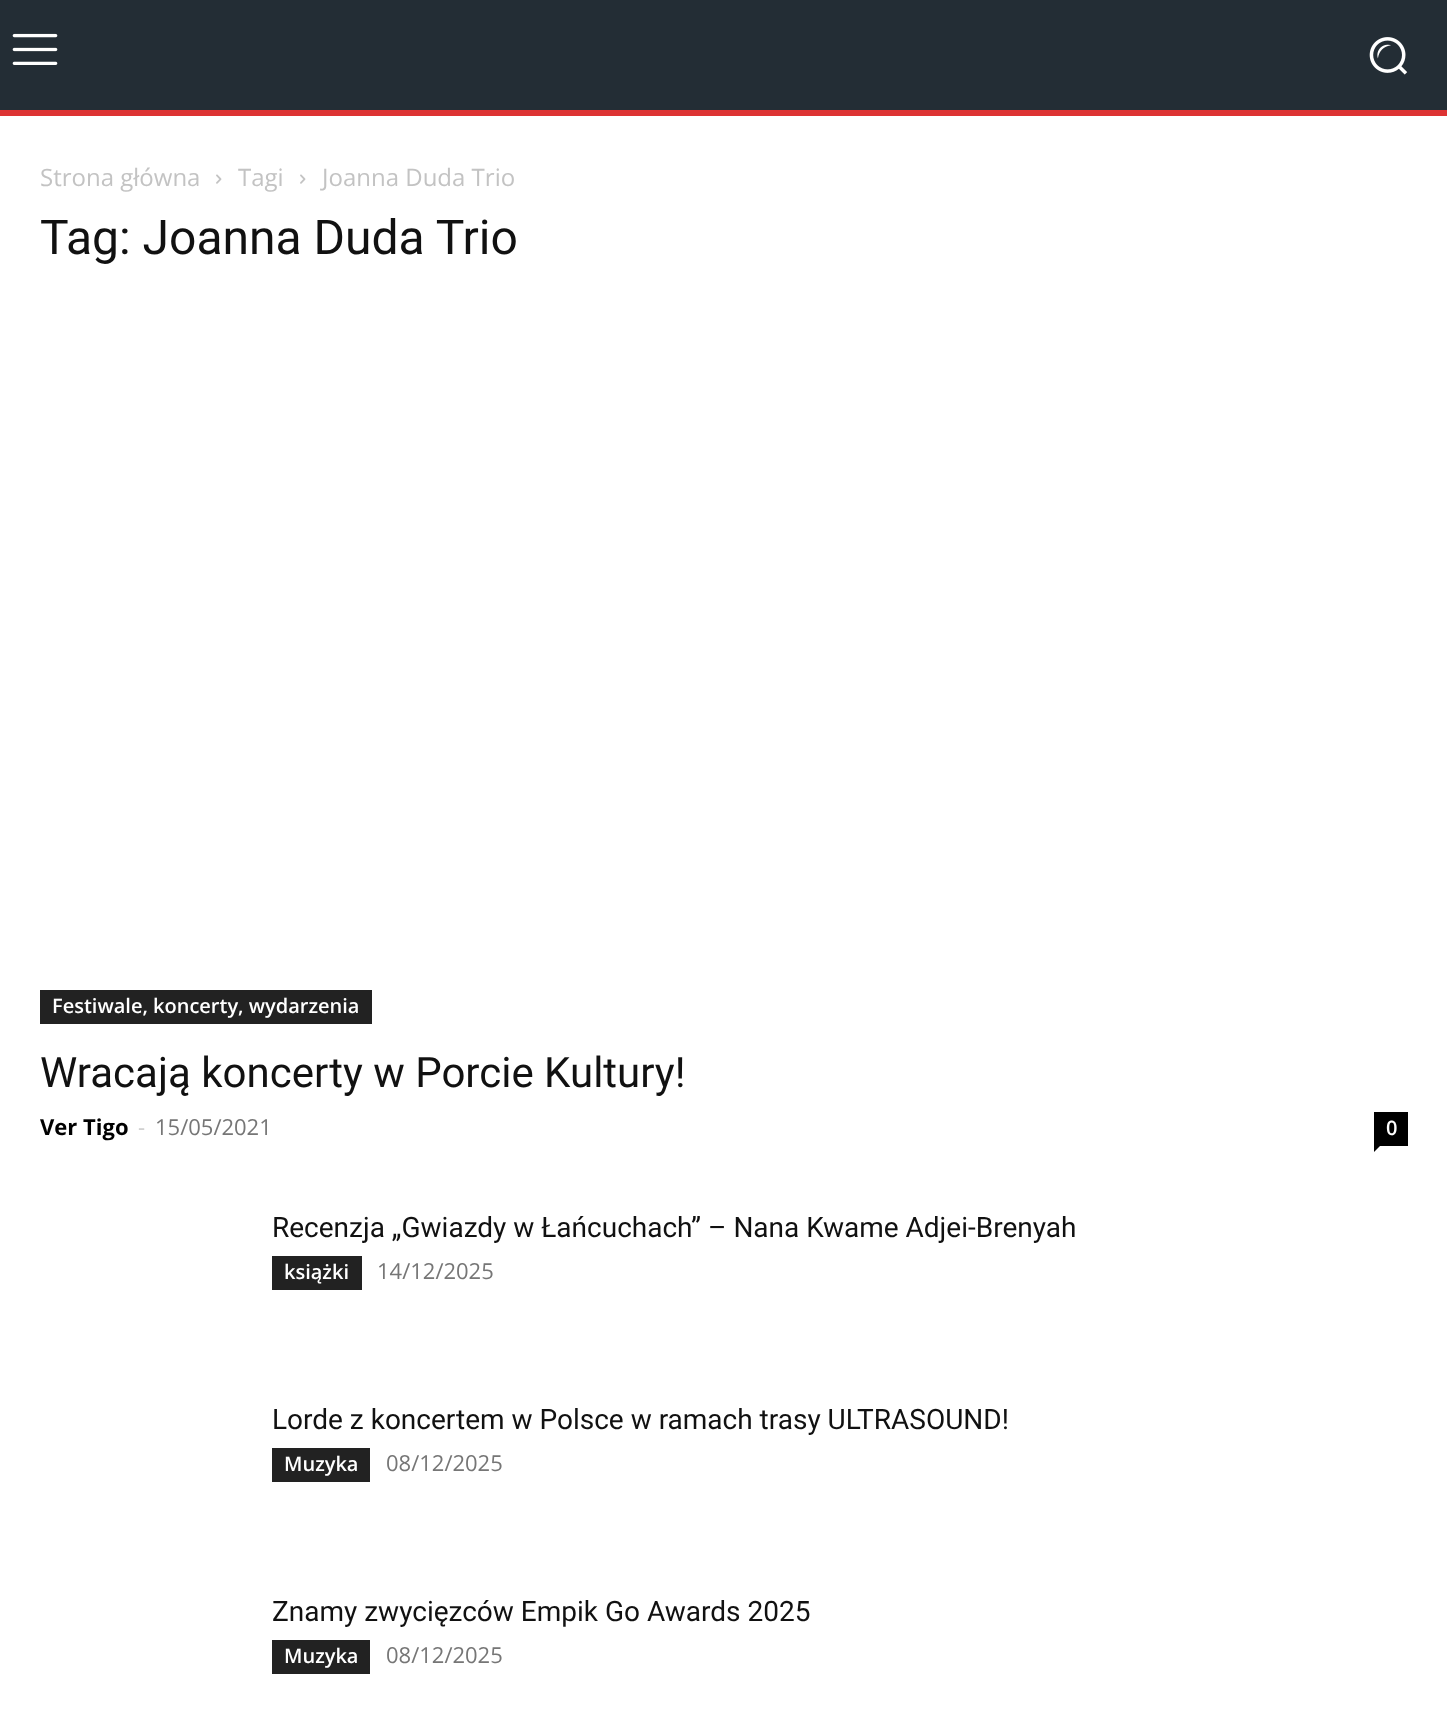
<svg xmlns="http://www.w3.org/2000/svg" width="1447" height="1729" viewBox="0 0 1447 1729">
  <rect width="100%" height="100%" fill="#ffffff"/>
  <rect x="0" y="0" width="1447" height="110" fill="#232d35"/>
  <image x="12" y="33" width="46" height="32" href="img1.png"/>
  <image x="1369" y="37" width="39" height="38" href="img2.png"/>
  <rect x="0" y="110" width="1447" height="6" fill="#dd3333"/>
  <text x="40" y="186" font-family="Open Sans" font-size="24" fill="#c3c3c3">Strona główna</text>
  <image x="216" y="174" width="6" height="10" href="img3.png"/>
  <text x="238" y="186" font-family="Open Sans" font-size="24" fill="#c3c3c3">Tagi</text>
  <image x="300" y="174" width="6" height="10" href="img3.png"/>
  <text x="322" y="186" font-family="Open Sans" font-size="24" fill="#c3c3c3">Joanna Duda Trio</text>
  <text x="40" y="254" font-family="Roboto" font-size="48" fill="#111111">Tag: Joanna Duda Trio</text>
  <rect x="40" y="990" width="332" height="34" fill="#222222"/>
  <text x="52" y="1013" font-family="Open Sans" font-size="20" font-weight="600" fill="#ffffff">Festiwale, koncerty, wydarzenia</text>
  <text x="40" y="1087" font-family="Roboto" font-size="42" fill="#111111">Wracają koncerty w Porcie Kultury!</text>
  <text x="40" y="1135" font-family="Open Sans" font-size="22" font-weight="bold" fill="#000000">Ver Tigo</text>
  <text x="138" y="1135" font-family="Open Sans" font-size="22" fill="#cccccc">-</text>
  <text x="155" y="1135" font-family="Open Sans" font-size="22" fill="#767676">15/05/2021</text>
  <rect x="1374" y="1112" width="34" height="34" fill="#000000"/>
  <text x="1386" y="1135" font-family="Open Sans" font-size="20" font-weight="600" fill="#ffffff">0</text>
  <path d="M1374 1146H1380L1374 1152Z" fill="#000000"/>
  <text x="272" y="1237" font-family="Roboto" font-size="28" fill="#111111">Recenzja „Gwiazdy w Łańcuchach” – Nana Kwame Adjei-Brenyah</text>
  <rect x="272" y="1256" width="90" height="34" fill="#222222"/>
  <text x="284" y="1279" font-family="Open Sans" font-size="20" font-weight="600" fill="#ffffff">książki</text>
  <text x="377" y="1279" font-family="Open Sans" font-size="22" fill="#767676">14/12/2025</text>
  <text x="272" y="1429" font-family="Roboto" font-size="28" fill="#111111">Lorde z koncertem w Polsce w ramach trasy ULTRASOUND!</text>
  <rect x="272" y="1448" width="98" height="34" fill="#222222"/>
  <text x="284" y="1471" font-family="Open Sans" font-size="20" font-weight="600" fill="#ffffff">Muzyka</text>
  <text x="386" y="1471" font-family="Open Sans" font-size="22" fill="#767676">08/12/2025</text>
  <text x="272" y="1621" font-family="Roboto" font-size="28" fill="#111111">Znamy zwycięzców Empik Go Awards 2025</text>
  <rect x="272" y="1640" width="98" height="34" fill="#222222"/>
  <text x="284" y="1663" font-family="Open Sans" font-size="20" font-weight="600" fill="#ffffff">Muzyka</text>
  <text x="386" y="1663" font-family="Open Sans" font-size="22" fill="#767676">08/12/2025</text>
</svg>
